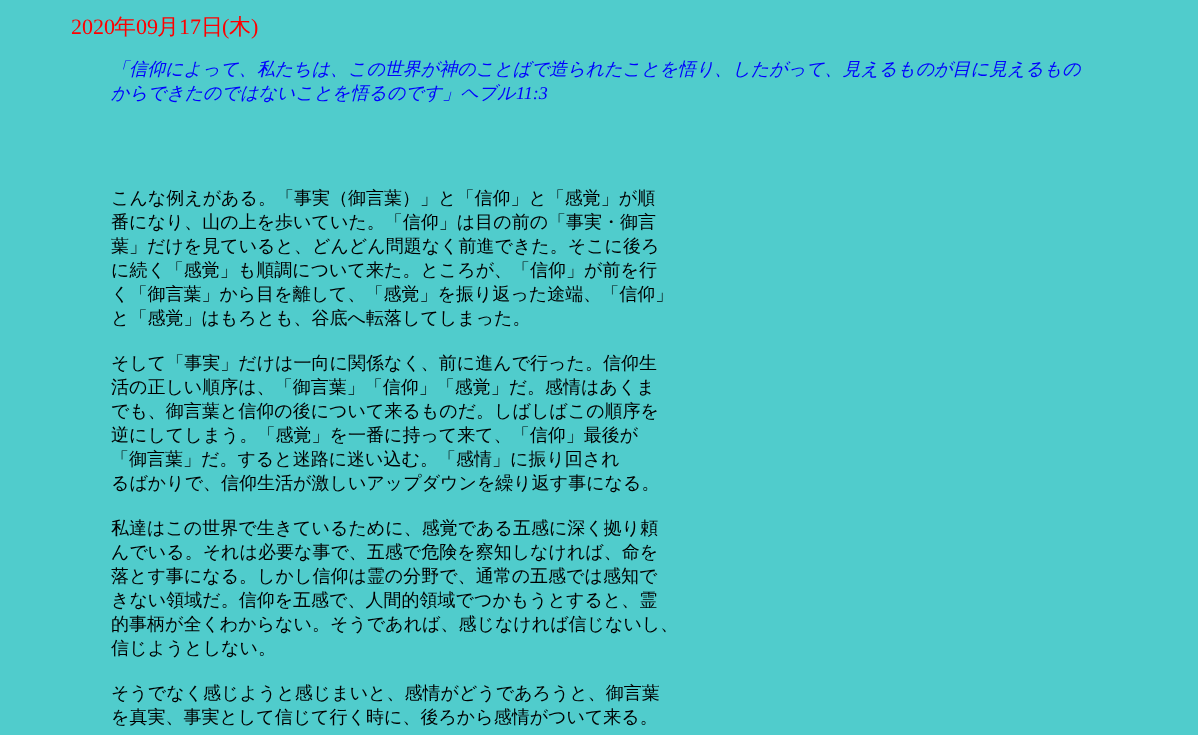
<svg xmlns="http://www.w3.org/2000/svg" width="1198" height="735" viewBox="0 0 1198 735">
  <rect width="100%" height="100%" fill="#50cccc"/>
  <text x="71" y="34" font-family="Liberation Serif" font-size="22" fill="#ff0000">2020</text>
  <text x="114" y="34" font-family="WenQuanYi Zen Hei" font-size="22" font-weight="500" fill="#ff0000">年</text>
  <text x="136" y="34" font-family="Liberation Serif" font-size="22" fill="#ff0000">09</text>
  <text x="157" y="34" font-family="WenQuanYi Zen Hei" font-size="22" font-weight="500" fill="#ff0000">月</text>
  <text x="179" y="34" font-family="Liberation Serif" font-size="22" fill="#ff0000">17</text>
  <text x="201" y="34" font-family="WenQuanYi Zen Hei" font-size="22" font-weight="500" fill="#ff0000">日</text>
  <text x="222" y="34" font-family="Liberation Serif" font-size="22" fill="#ff0000">(</text>
  <text x="229" y="34" font-family="WenQuanYi Zen Hei" font-size="22" font-weight="500" fill="#ff0000">木</text>
  <text x="251" y="34" font-family="Liberation Serif" font-size="22" fill="#ff0000">)</text>
  <text x="111" y="75" font-family="WenQuanYi Zen Hei" font-size="18" font-weight="500" font-style="italic" fill="#0000ff">「信仰によって、私たちは、この世界が神のことばで造られたことを悟り、したがって、見えるものが目に見えるもの</text>
  <text x="111" y="99" font-family="WenQuanYi Zen Hei" font-size="18" font-weight="500" font-style="italic" fill="#0000ff">からできたのではないことを悟るのです」ヘブル</text>
  <text x="516" y="99" font-family="Liberation Serif" font-size="18" font-style="italic" fill="#0000ff">11:3</text>
  <text x="111" y="204" font-family="WenQuanYi Zen Hei" font-size="18" font-weight="500" fill="#000000">こんな例えがある。「事実（御言葉）」と「信仰」と「感覚」が順</text>
  <text x="111" y="228" font-family="WenQuanYi Zen Hei" font-size="18" font-weight="500" fill="#000000">番になり、山の上を歩いていた。「信仰」は目の前の「事実・御言</text>
  <text x="111" y="252" font-family="WenQuanYi Zen Hei" font-size="18" font-weight="500" fill="#000000">葉」だけを見ていると、どんどん問題なく前進できた。そこに後ろ</text>
  <text x="111" y="276" font-family="WenQuanYi Zen Hei" font-size="18" font-weight="500" fill="#000000">に続く「感覚」も順調について来た。ところが、「信仰」が前を行</text>
  <text x="111" y="300" font-family="WenQuanYi Zen Hei" font-size="18" font-weight="500" fill="#000000">く「御言葉」から目を離して、「感覚」を振り返った途端、「信仰」</text>
  <text x="111" y="324" font-family="WenQuanYi Zen Hei" font-size="18" font-weight="500" fill="#000000">と「感覚」はもろとも、谷底へ転落してしまった。</text>
  <text x="111" y="369" font-family="WenQuanYi Zen Hei" font-size="18" font-weight="500" fill="#000000">そして「事実」だけは一向に関係なく、前に進んで行った。信仰生</text>
  <text x="111" y="393" font-family="WenQuanYi Zen Hei" font-size="18" font-weight="500" fill="#000000">活の正しい順序は、「御言葉」「信仰」「感覚」だ。感情はあくま</text>
  <text x="111" y="417" font-family="WenQuanYi Zen Hei" font-size="18" font-weight="500" fill="#000000">でも、御言葉と信仰の後について来るものだ。しばしばこの順序を</text>
  <text x="111" y="441" font-family="WenQuanYi Zen Hei" font-size="18" font-weight="500" fill="#000000">逆にしてしまう。「感覚」を一番に持って来て、「信仰」最後が</text>
  <text x="111" y="465" font-family="WenQuanYi Zen Hei" font-size="18" font-weight="500" fill="#000000">「御言葉」だ。すると迷路に迷い込む。「感情」に振り回され</text>
  <text x="111" y="489" font-family="WenQuanYi Zen Hei" font-size="18" font-weight="500" fill="#000000">るばかりで、信仰生活が激しいアップダウンを繰り返す事になる。</text>
  <text x="111" y="534" font-family="WenQuanYi Zen Hei" font-size="18" font-weight="500" fill="#000000">私達はこの世界で生きているために、感覚である五感に深く拠り頼</text>
  <text x="111" y="558" font-family="WenQuanYi Zen Hei" font-size="18" font-weight="500" fill="#000000">んでいる。それは必要な事で、五感で危険を察知しなければ、命を</text>
  <text x="111" y="582" font-family="WenQuanYi Zen Hei" font-size="18" font-weight="500" fill="#000000">落とす事になる。しかし信仰は霊の分野で、通常の五感では感知で</text>
  <text x="111" y="606" font-family="WenQuanYi Zen Hei" font-size="18" font-weight="500" fill="#000000">きない領域だ。信仰を五感で、人間的領域でつかもうとすると、霊</text>
  <text x="111" y="630" font-family="WenQuanYi Zen Hei" font-size="18" font-weight="500" fill="#000000">的事柄が全くわからない。そうであれば、感じなければ信じないし、</text>
  <text x="111" y="654" font-family="WenQuanYi Zen Hei" font-size="18" font-weight="500" fill="#000000">信じようとしない。</text>
  <text x="111" y="699" font-family="WenQuanYi Zen Hei" font-size="18" font-weight="500" fill="#000000">そうでなく感じようと感じまいと、感情がどうであろうと、御言葉</text>
  <text x="111" y="723" font-family="WenQuanYi Zen Hei" font-size="18" font-weight="500" fill="#000000">を真実、事実として信じて行く時に、後ろから感情がついて来る。</text>
</svg>
